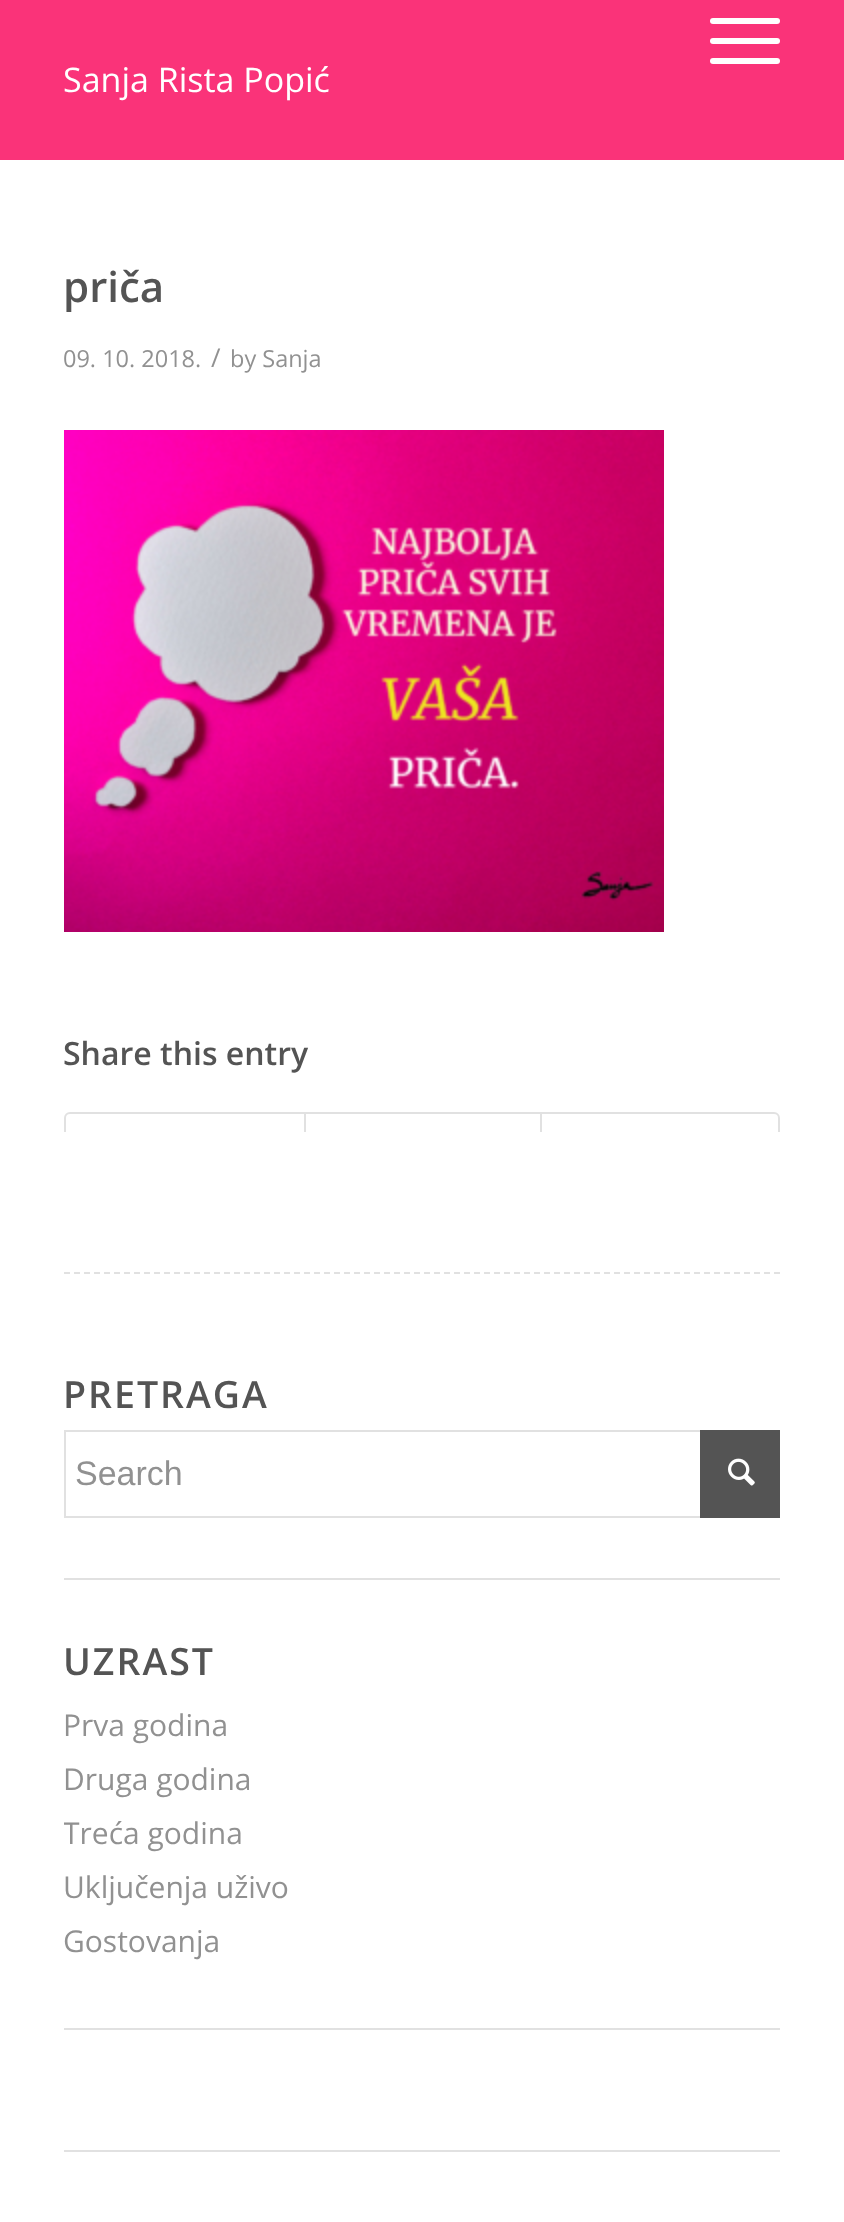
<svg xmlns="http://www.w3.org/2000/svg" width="844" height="2222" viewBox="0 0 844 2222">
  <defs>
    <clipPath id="clip1"><rect x="64" y="260" width="716" height="872"/></clipPath>
    <clipPath id="clip2"><rect x="64" y="1274" width="716" height="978"/></clipPath>
  </defs>
  <rect width="100%" height="100%" fill="#fa3379"/>
  <rect x="710" y="38" width="70" height="6" rx="3" fill="#ffffff"/>
  <rect x="710" y="18" width="70" height="6" rx="3" fill="#ffffff"/>
  <rect x="710" y="58" width="70" height="6" rx="3" fill="#ffffff"/>
  <text x="63" y="92" font-family="Open Sans" font-size="34" fill="#ffffff">Sanja Rista Popić</text>
  <rect x="0" y="160" width="844" height="2062" fill="#ffffff"/>
  <text x="63" y="302" font-family="Open Sans" font-size="42" font-weight="600" fill="#545454">priča</text>
  <text x="63" y="367" font-family="Open Sans" font-size="23.5" fill="#919191">09. 10. 2018.</text>
  <text x="211" y="367" font-family="Open Sans" font-size="26" fill="#919191">/</text>
  <text x="230" y="367" font-family="Open Sans" font-size="23.5" fill="#919191">by Sanja</text>
  <image x="64" y="430" width="600" height="502" href="img1.png"/>
  <text x="63" y="1065" font-family="Open Sans" font-size="32" font-weight="600" fill="#545454">Share this entry</text>
  <g clip-path="url(#clip1)">
    <rect x="65" y="1113" width="714" height="118" rx="5" fill="none" stroke="#e1e1e1" stroke-width="2"/>
  </g>
  <rect x="304" y="1114" width="2" height="18" fill="#e1e1e1"/>
  <rect x="540" y="1114" width="2" height="18" fill="#e1e1e1"/>
  <path d="M64 1273H780" fill="none" stroke="#e1e1e1" stroke-width="2" stroke-dasharray="6 4"/>
  <rect x="64" y="1578" width="716" height="2" fill="#e1e1e1"/>
  <text x="63" y="1408" font-family="Open Sans" font-size="37.5" font-weight="600" letter-spacing="2" fill="#545454">PRETRAGA</text>
  <rect x="65" y="1431" width="714" height="86" fill="none" stroke="#e1e1e1" stroke-width="2"/>
  <text x="75" y="1485" font-family="Liberation Sans" font-size="34" fill="#919191">Search</text>
  <rect x="700" y="1430" width="80" height="88" fill="#545454"/>
  <image x="728" y="1458" width="27" height="28" href="img2.png"/>
  <rect x="64" y="2028" width="716" height="2" fill="#e1e1e1"/>
  <text x="63" y="1675" font-family="Open Sans" font-size="37.5" font-weight="600" letter-spacing="2" fill="#545454">UZRAST</text>
  <text x="63" y="1736" font-family="Open Sans" font-size="30" fill="#919191">Prva godina</text>
  <text x="63" y="1790" font-family="Open Sans" font-size="30" fill="#919191">Druga godina</text>
  <g clip-path="url(#clip2)">
    <text x="63" y="1844" font-family="Open Sans" font-size="30" fill="#919191">Treća godina</text>
  </g>
  <text x="63" y="1898" font-family="Open Sans" font-size="30" fill="#919191">Uključenja uživo</text>
  <text x="63" y="1952" font-family="Open Sans" font-size="30" fill="#919191">Gostovanja</text>
  <rect x="64" y="2150" width="716" height="2" fill="#e1e1e1"/>
</svg>
